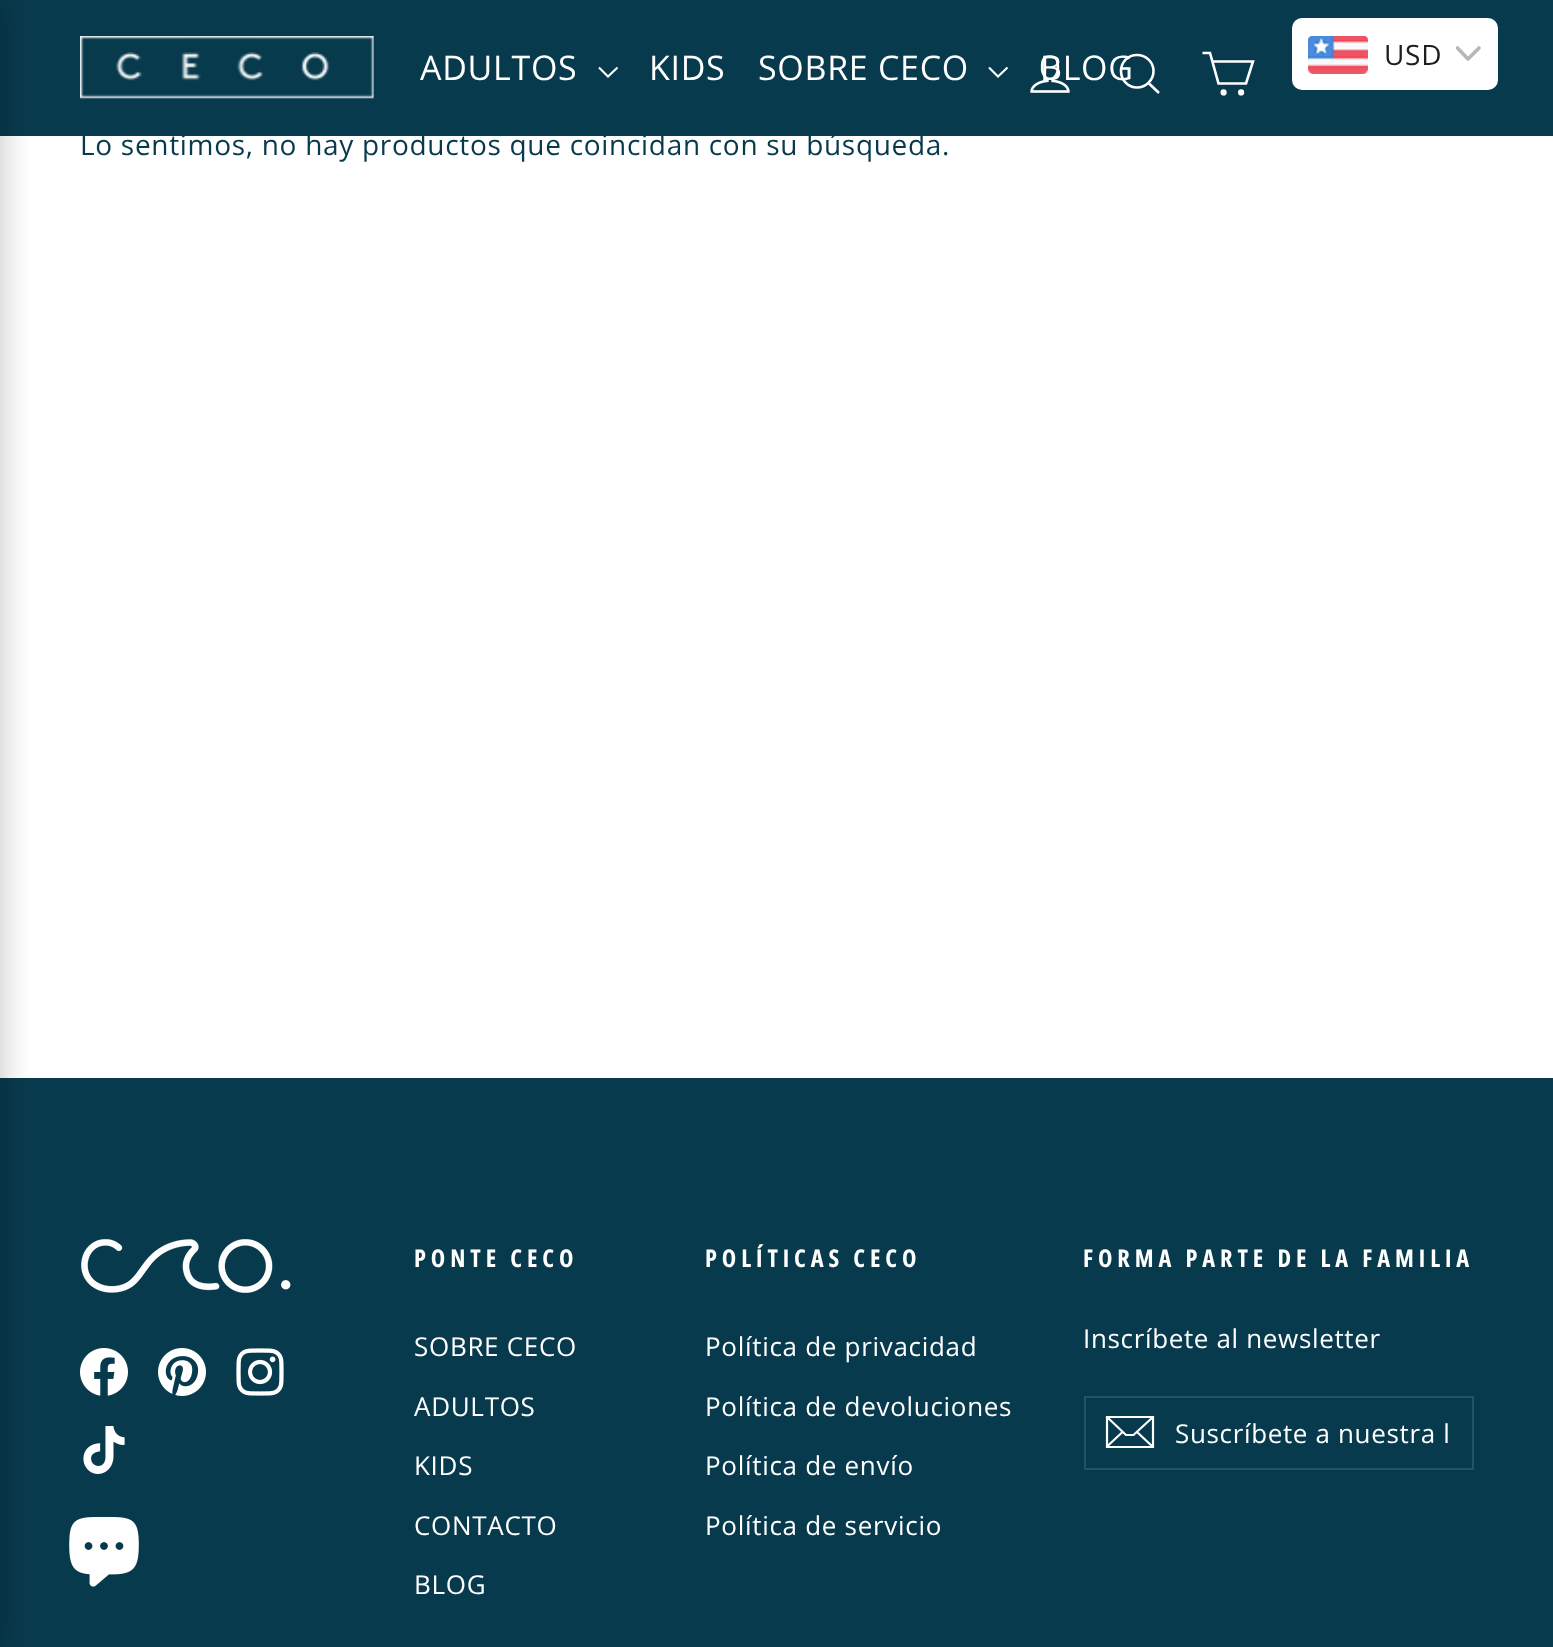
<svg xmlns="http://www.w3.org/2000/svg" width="1553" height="1647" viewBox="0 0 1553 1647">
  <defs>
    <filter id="blur1" x="-50%" y="-200%" width="200%" height="500%"><feGaussianBlur stdDeviation="15"/></filter>
  </defs>
  <rect width="100%" height="100%" fill="#ffffff"/>
  <rect x="0" y="0" width="1553" height="136" fill="#083a4d"/>
  <rect x="0" y="1078" width="1553" height="569" fill="#083a4d"/>
  <rect x="-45" y="0" width="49" height="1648" fill="#000000" fill-opacity="0.2" filter="url(#blur1)"/>
  <image x="80" y="36" width="294" height="63" href="img1.png"/>
  <text x="420" y="80" font-family="Open Sans" font-size="34" letter-spacing="0.7" fill="#ffffff">ADULTOS</text>
  <path d="M599 67.5L608 76.5L617.5 67.5" fill="none" stroke="#ffffff" stroke-width="2.1"/>
  <text x="649" y="80" font-family="Open Sans" font-size="34" letter-spacing="0.7" fill="#ffffff">KIDS</text>
  <text x="758" y="80" font-family="Open Sans" font-size="34" letter-spacing="0.7" fill="#ffffff">SOBRE CECO</text>
  <path d="M989 67.5L998 76.5L1007.5 67.5" fill="none" stroke="#ffffff" stroke-width="2.1"/>
  <image x="1030" y="55" width="40" height="38" href="img2.png"/>
  <path d="M1153.5 71C1153.5 80 1146 87.5 1137 87.5C1128 87.5 1121 80 1121 71C1121 62 1128 55 1137 55C1146 55 1153.5 62 1153.5 71ZM1159 93L1148.5 83" fill="none" stroke="#ffffff" stroke-width="2.6"/>
  <text x="1040" y="80" font-family="Open Sans" font-size="34" letter-spacing="0.7" fill="#ffffff">BLOG</text>
  <path d="M1212 61.5H1253L1246 83.5H1218.5L1210 53H1202.5" fill="none" stroke="#ffffff" stroke-width="2.6"/>
  <circle cx="1223.6" cy="92.4" r="1.8" fill="#ffffff" stroke="#ffffff" stroke-width="2.6"/>
  <circle cx="1241.1" cy="92.4" r="1.8" fill="#ffffff" stroke="#ffffff" stroke-width="2.6"/>
  <rect x="1292" y="18" width="206" height="72" rx="10" fill="#ffffff"/>
  <image x="1308" y="36" width="60" height="38" href="img3.png"/>
  <text x="1384" y="65" font-family="Open Sans" font-size="28" letter-spacing="0.7" fill="#1e1e1e">USD</text>
  <path d="M1457.5 48L1468 59L1479 48" fill="none" stroke="#b7b7b7" stroke-width="3.6" stroke-linecap="round" stroke-linejoin="round"/>
  <text x="80" y="155" font-family="Open Sans" font-size="28" letter-spacing="0.7" fill="#083a4d">Lo sentimos, no hay productos que coincidan con su búsqueda.</text>
  <image x="81" y="1239" width="210" height="54" href="img4.png"/>
  <image x="80" y="1348" width="48" height="48" href="img5.png"/>
  <image x="158" y="1348" width="48" height="48" href="img6.png"/>
  <image x="236" y="1348" width="48" height="48" href="img7.png"/>
  <image x="83" y="1426" width="42" height="48" href="img8.png"/>
  <text x="414" y="1267" font-family="Open Sans Condensed" font-size="24.4" font-weight="bold" letter-spacing="4.9" fill="#ffffff">PONTE CECO</text>
  <text x="414" y="1356" font-family="Open Sans" font-size="26" letter-spacing="0.7" fill="#ffffff">SOBRE CECO</text>
  <text x="414" y="1416" font-family="Open Sans" font-size="26" letter-spacing="0.7" fill="#ffffff">ADULTOS</text>
  <text x="414" y="1475" font-family="Open Sans" font-size="26" letter-spacing="0.7" fill="#ffffff">KIDS</text>
  <text x="414" y="1535" font-family="Open Sans" font-size="26" letter-spacing="0.7" fill="#ffffff">CONTACTO</text>
  <text x="414" y="1594" font-family="Open Sans" font-size="26" letter-spacing="0.7" fill="#ffffff">BLOG</text>
  <text x="705" y="1267" font-family="Open Sans Condensed" font-size="24.4" font-weight="bold" letter-spacing="4.9" fill="#ffffff">POLÍTICAS CECO</text>
  <text x="705" y="1356" font-family="Open Sans" font-size="26" letter-spacing="0.7" fill="#ffffff">Política de privacidad</text>
  <text x="705" y="1416" font-family="Open Sans" font-size="26" letter-spacing="0.7" fill="#ffffff">Política de devoluciones</text>
  <text x="705" y="1475" font-family="Open Sans" font-size="26" letter-spacing="0.7" fill="#ffffff">Política de envío</text>
  <text x="705" y="1535" font-family="Open Sans" font-size="26" letter-spacing="0.7" fill="#ffffff">Política de servicio</text>
  <text x="1083" y="1267" font-family="Open Sans Condensed" font-size="24.4" font-weight="bold" letter-spacing="4.9" fill="#ffffff">FORMA PARTE DE LA FAMILIA</text>
  <text x="1083" y="1348" font-family="Open Sans" font-size="26" letter-spacing="0.65" fill="#ffffff">Inscríbete al newsletter</text>
  <rect x="1085" y="1397" width="388" height="72" fill="none" stroke="#265262" stroke-width="2"/>
  <path d="M1153 1447H1107V1417H1153ZM1107 1417L1126 1435H1133.5L1153 1417M1122.5 1432L1107 1446.5M1153 1447L1137 1432" fill="none" stroke="#ffffff" stroke-width="2.2"/>
  <text x="1175" y="1443" font-family="Open Sans" font-size="26" letter-spacing="0.65" fill="#ffffff">Suscríbete a nuestra l</text>
  <image x="69" y="1517" width="70" height="70" href="img9.png"/>
</svg>
